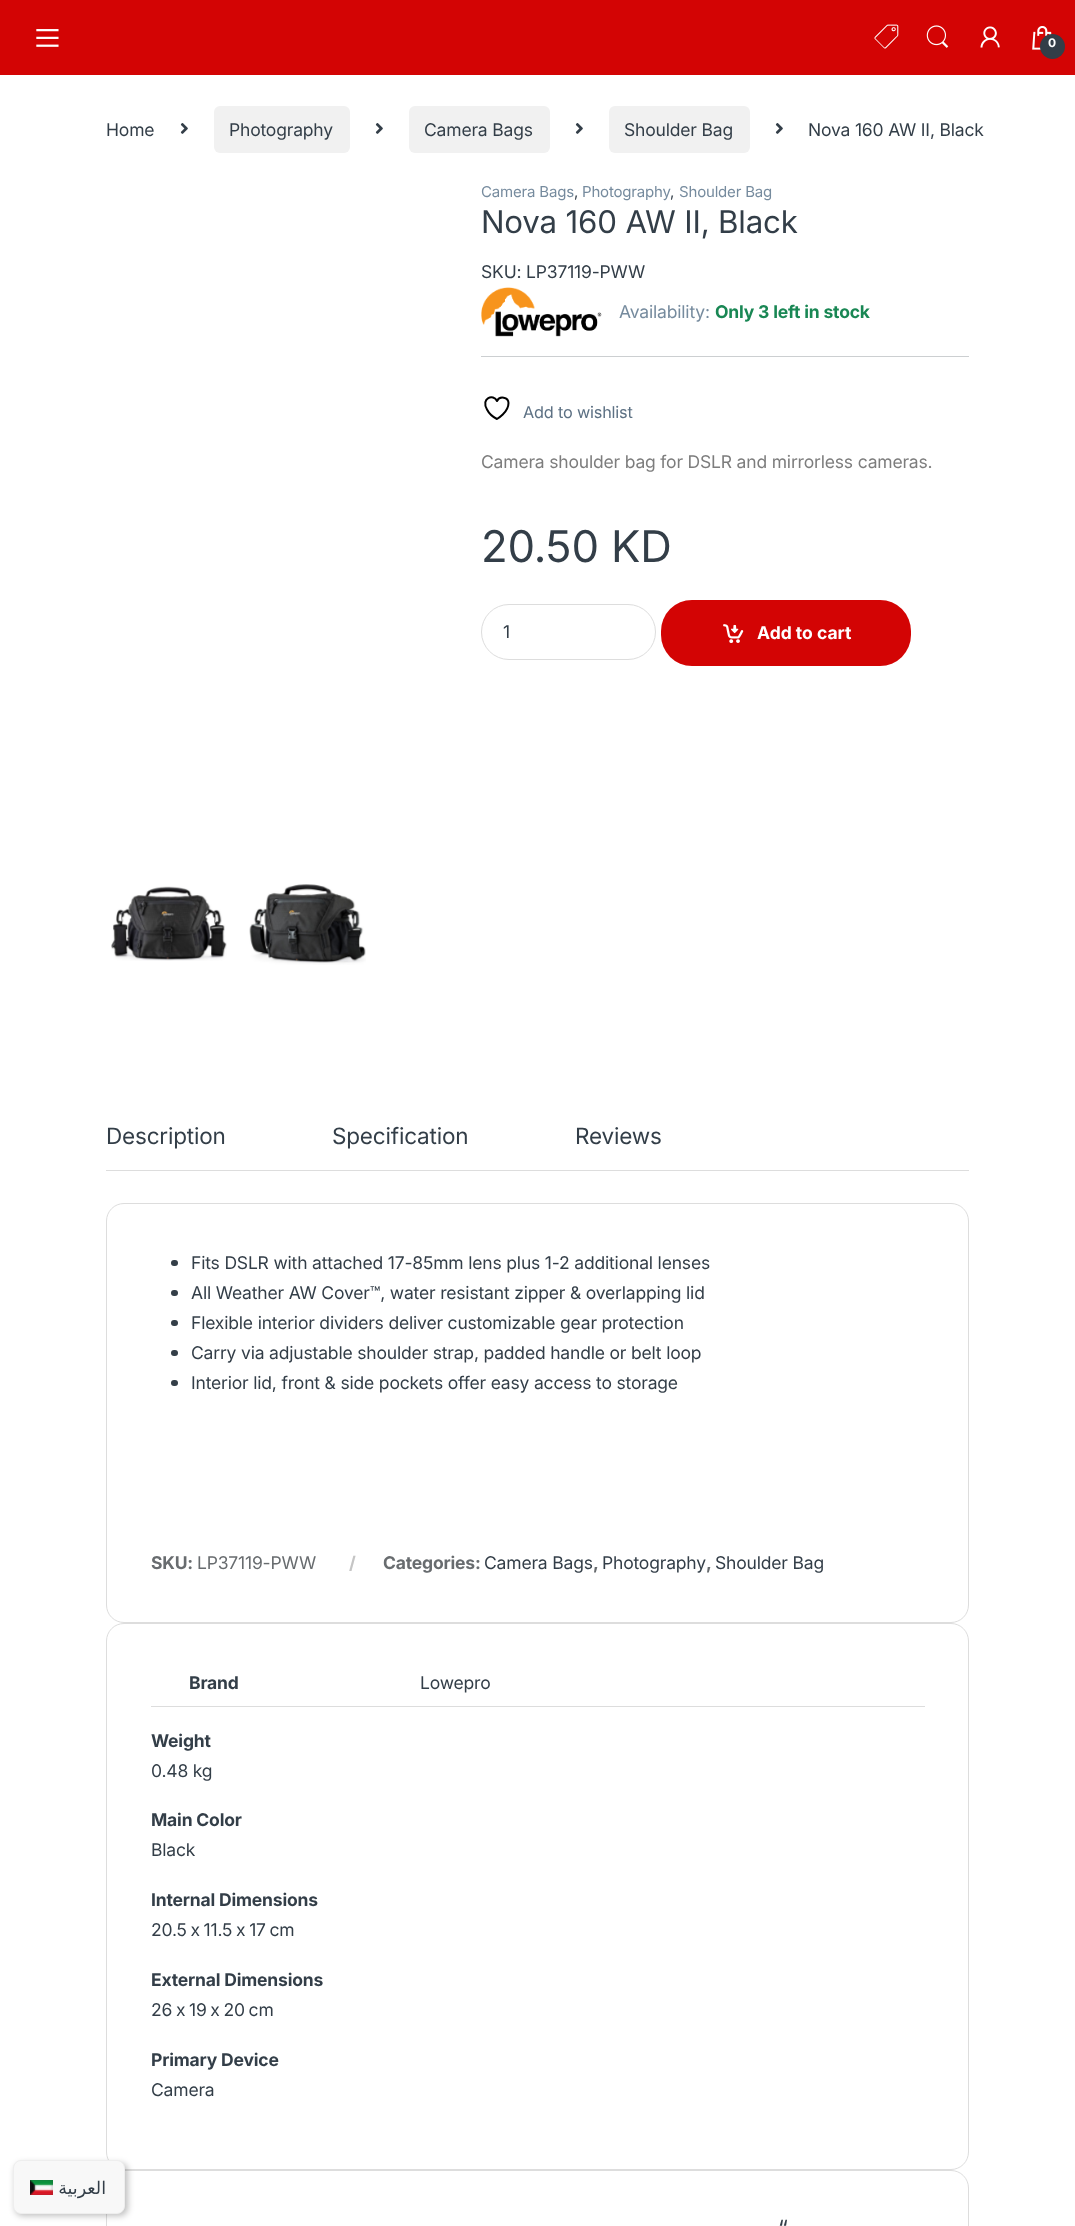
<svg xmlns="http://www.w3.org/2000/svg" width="1075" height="2226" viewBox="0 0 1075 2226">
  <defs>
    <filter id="blur1" x="-50%" y="-200%" width="200%" height="500%"><feGaussianBlur stdDeviation="3"/></filter>
  </defs>
  <rect width="100%" height="100%" fill="#ffffff"/>
  <rect x="106.5" y="1623.5" width="862" height="546" rx="17.5" fill="none" stroke="#dddddd"/>
  <rect x="106.5" y="2170.5" width="862" height="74" rx="17.5" fill="none" stroke="#dddddd"/>
  <rect x="15" y="2163" width="113" height="53" rx="8" fill="#000000" fill-opacity="0.25" filter="url(#blur1)"/>
  <rect x="13.5" y="2160.5" width="111" height="53" rx="7.5" fill="#f8f8f8" stroke="#eeeeee"/>
  <image x="30" y="2180" width="23" height="15" href="img1.png"/>
  <text x="106" y="2194" font-family="DejaVu Sans" font-size="17.5" letter-spacing="-0.18" direction="rtl" fill="#333e48">العربية</text>
  <rect x="0" y="0" width="1075" height="75" fill="#d30404"/>
  <image x="36" y="29" width="23" height="18" href="img2.png"/>
  <image x="874" y="24" width="25" height="25" href="img3.png"/>
  <image x="926" y="25" width="23" height="23" href="img4.png"/>
  <image x="980" y="26" width="20" height="22" href="img5.png"/>
  <image x="1032" y="26" width="20" height="24" href="img6.png"/>
  <circle cx="1052.5" cy="46.5" r="12.5" fill="#333e48"/>
  <text x="1048" y="47" font-family="Inter" font-size="12" font-weight="bold" letter-spacing="-0.18" fill="#ffffff">0</text>
  <text x="106" y="136" font-family="Inter" font-size="17.5" letter-spacing="-0.18" fill="#333e48">Home</text>
  <image x="180" y="123" width="8" height="11" href="img7.png"/>
  <rect x="214" y="106" width="136" height="47" rx="6" fill="#f1f1f1"/>
  <text x="229" y="136" font-family="Inter" font-size="17.5" letter-spacing="-0.18" fill="#333e48">Photography</text>
  <image x="375" y="123" width="8" height="11" href="img7.png"/>
  <rect x="409" y="106" width="141" height="47" rx="6" fill="#f1f1f1"/>
  <text x="424" y="136" font-family="Inter" font-size="17.5" letter-spacing="-0.18" fill="#333e48">Camera Bags</text>
  <image x="575" y="123" width="8" height="11" href="img7.png"/>
  <rect x="609" y="106" width="141" height="47" rx="6" fill="#f1f1f1"/>
  <text x="624" y="136" font-family="Inter" font-size="17.5" letter-spacing="-0.18" fill="#333e48">Shoulder Bag</text>
  <image x="775" y="123" width="8" height="11" href="img7.png"/>
  <text x="808" y="136" font-family="Inter" font-size="17.5" letter-spacing="-0.18" fill="#333e48">Nova 160 AW II, Black</text>
  <text x="481" y="197" font-family="Inter" font-size="15" letter-spacing="-0.18" fill="#768b9e">Camera Bags</text>
  <text x="574" y="197" font-family="Inter" font-size="15" letter-spacing="-0.18" fill="#333e48">,</text>
  <text x="582" y="197" font-family="Inter" font-size="15" letter-spacing="-0.18" fill="#768b9e">Photography</text>
  <text x="670" y="197" font-family="Inter" font-size="15" letter-spacing="-0.18" fill="#333e48">,</text>
  <text x="679" y="197" font-family="Inter" font-size="15" letter-spacing="-0.18" fill="#768b9e">Shoulder Bag</text>
  <text x="481" y="233" font-family="Inter" font-size="31.25" letter-spacing="-0.18" fill="#333e48">Nova 160 AW II, Black</text>
  <text x="481" y="278" font-family="Inter" font-size="17.5" letter-spacing="-0.18" fill="#333e48">SKU: LP37119-PWW</text>
  <image x="481" y="287" width="121" height="50" href="img8.png"/>
  <text x="619" y="318" font-family="Inter" font-size="17.5" letter-spacing="-0.18" fill="#768b9e">Availability:</text>
  <text x="715" y="318" font-family="Inter" font-size="17.5" font-weight="bold" letter-spacing="-0.18" fill="#198754">Only 3 left in stock</text>
  <rect x="481" y="356" width="488" height="1" fill="#cccfd1"/>
  <path d="M508.5 403C508.5 397 499.5 395.5 497 401C493.5 393.5 480.5 398 487 409.5C489 413.5 493 417 497 419C497 419 508.5 412.5 508.5 403Z" fill="none" stroke="#000000" stroke-width="2" stroke-linecap="round" stroke-linejoin="round"/>
  <text x="523" y="418" font-family="Inter" font-size="16.25" letter-spacing="-0.18" fill="#5d7184">Add to wishlist</text>
  <text x="481" y="468" font-family="Inter" font-size="17.5" letter-spacing="-0.18" fill="#7d7d7d">Camera shoulder bag for DSLR and mirrorless cameras.</text>
  <text x="481" y="562" font-family="Inter" font-size="43.75" letter-spacing="-0.18" fill="#333e48">20.50 KD</text>
  <rect x="481.5" y="604.5" width="174" height="55" rx="27.5" fill="none" stroke="#dddddd"/>
  <text x="503" y="638" font-family="Inter" font-size="17.5" fill="#333e48">1</text>
  <rect x="661" y="600" width="250" height="66" rx="31" fill="#d30404"/>
  <image x="723" y="624" width="21" height="19" href="img9.png"/>
  <text x="757" y="639" font-family="Inter" font-size="17.5" font-weight="bold" fill="#ffffff">Add to cart</text>
  <image x="111" y="886" width="116" height="75" href="img10.png"/>
  <image x="249" y="884" width="117" height="81" href="img11.png"/>
  <text x="106" y="1144" font-family="Inter" font-size="22.5" letter-spacing="-0.18" fill="#333e48">Description</text>
  <text x="332" y="1144" font-family="Inter" font-size="22.5" letter-spacing="-0.18" fill="#333e48">Specification</text>
  <text x="575" y="1144" font-family="Inter" font-size="22.5" letter-spacing="-0.18" fill="#333e48">Reviews</text>
  <rect x="106" y="1170" width="863" height="1" fill="#dddddd"/>
  <rect x="106.5" y="1203.5" width="862" height="419" rx="17.5" fill="none" stroke="#dddddd"/>
  <rect x="171" y="1260" width="7" height="6" rx="3" fill="#333e48"/>
  <text x="191" y="1269" font-family="Inter" font-size="17.5" letter-spacing="-0.18" fill="#333e48">Fits DSLR with attached 17-85mm lens plus 1-2 additional lenses</text>
  <rect x="171" y="1290" width="7" height="6" rx="3" fill="#333e48"/>
  <text x="191" y="1299" font-family="Inter" font-size="17.5" letter-spacing="-0.18" fill="#333e48">All Weather AW Cover™, water resistant zipper &amp; overlapping lid</text>
  <rect x="171" y="1320" width="7" height="6" rx="3" fill="#333e48"/>
  <text x="191" y="1329" font-family="Inter" font-size="17.5" letter-spacing="-0.18" fill="#333e48">Flexible interior dividers deliver customizable gear protection</text>
  <rect x="171" y="1350" width="7" height="6" rx="3" fill="#333e48"/>
  <text x="191" y="1359" font-family="Inter" font-size="17.5" letter-spacing="-0.18" fill="#333e48">Carry via adjustable shoulder strap, padded handle or belt loop</text>
  <rect x="171" y="1380" width="7" height="6" rx="3" fill="#333e48"/>
  <text x="191" y="1389" font-family="Inter" font-size="17.5" letter-spacing="-0.18" fill="#333e48">Interior lid, front &amp; side pockets offer easy access to storage</text>
  <text x="151" y="1569" font-family="Inter" font-size="17.5" font-weight="bold" letter-spacing="-0.18" fill="#686c6f">SKU:</text>
  <text x="197" y="1569" font-family="Inter" font-size="17.5" letter-spacing="-0.18" fill="#686c6f">LP37119-PWW</text>
  <text x="349" y="1569" font-family="Inter" font-size="17.5" font-weight="bold" letter-spacing="-0.18" fill="#c5c5c5">/</text>
  <text x="383" y="1569" font-family="Inter" font-size="17.5" font-weight="bold" letter-spacing="-0.18" fill="#686c6f">Categories:</text>
  <text x="484" y="1569" font-family="Inter" font-size="17.5" letter-spacing="-0.18" fill="#333e48">Camera Bags</text>
  <text x="593" y="1569" font-family="Inter" font-size="17.5" font-weight="bold" letter-spacing="-0.18" fill="#686c6f">,</text>
  <text x="602" y="1569" font-family="Inter" font-size="17.5" letter-spacing="-0.18" fill="#333e48">Photography</text>
  <text x="706" y="1569" font-family="Inter" font-size="17.5" font-weight="bold" letter-spacing="-0.18" fill="#686c6f">,</text>
  <text x="715" y="1569" font-family="Inter" font-size="17.5" letter-spacing="-0.18" fill="#333e48">Shoulder Bag</text>
  <text x="189" y="1689" font-family="Inter" font-size="17.5" font-weight="bold" letter-spacing="-0.18" fill="#333e48">Brand</text>
  <rect x="151" y="1706" width="774" height="1" fill="#dddddd"/>
  <text x="420" y="1689" font-family="Inter" font-size="17.5" letter-spacing="-0.18" fill="#333e48">Lowepro</text>
  <text x="151" y="1747" font-family="Inter" font-size="17.5" font-weight="bold" letter-spacing="-0.18" fill="#333e48">Weight</text>
  <text x="151" y="1777" font-family="Inter" font-size="17.5" letter-spacing="-0.18" fill="#333e48">0.48 kg</text>
  <text x="151" y="1826" font-family="Inter" font-size="17.5" font-weight="bold" letter-spacing="-0.18" fill="#333e48">Main Color</text>
  <text x="151" y="1856" font-family="Inter" font-size="17.5" letter-spacing="-0.18" fill="#333e48">Black</text>
  <text x="151" y="1906" font-family="Inter" font-size="17.5" font-weight="bold" letter-spacing="-0.18" fill="#333e48">Internal Dimensions</text>
  <text x="151" y="1936" word-spacing="-1" font-family="Inter" font-size="17.5" letter-spacing="-0.18" fill="#333e48">20.5 x 11.5 x 17 cm</text>
  <text x="151" y="1986" font-family="Inter" font-size="17.5" font-weight="bold" letter-spacing="-0.18" fill="#333e48">External Dimensions</text>
  <text x="151" y="2016" word-spacing="-1" font-family="Inter" font-size="17.5" letter-spacing="-0.18" fill="#333e48">26 x 19 x 20 cm</text>
  <text x="151" y="2066" font-family="Inter" font-size="17.5" font-weight="bold" letter-spacing="-0.18" fill="#333e48">Primary Device</text>
  <text x="151" y="2096" font-family="Inter" font-size="17.5" letter-spacing="-0.18" fill="#333e48">Camera</text>
  <text x="778" y="2236" font-family="Inter" font-size="22.5" letter-spacing="-0.18" fill="#333e48">“</text>
</svg>
